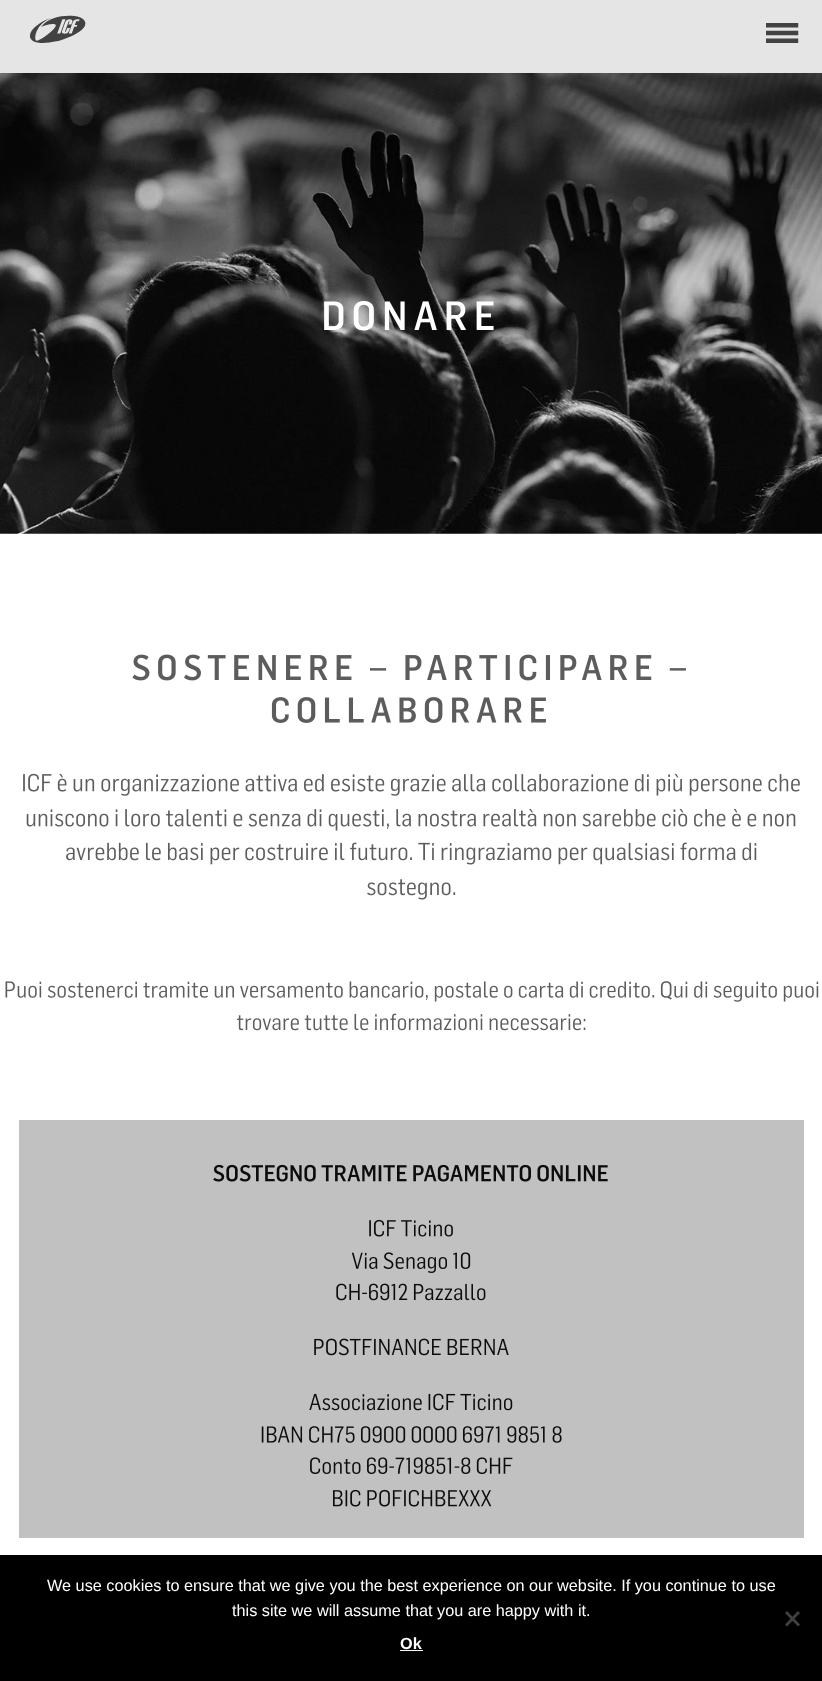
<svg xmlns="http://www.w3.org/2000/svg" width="822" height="1681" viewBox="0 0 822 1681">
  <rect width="100%" height="100%" fill="#ffffff"/>
  <rect x="0" y="0" width="822" height="73" fill="#e5e5e5"/>
  <text x="26" y="43" font-family="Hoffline" font-size="38" fill="#424242">!</text>
  <text x="764" y="43" font-family="Hoffline" font-size="25" fill="#424242">—</text>
  <image x="0" y="73" width="822" height="461" href="img1.png"/>
  <image x="324" y="301" width="170" height="30" href="img2.png"/>
  <image x="132" y="654" width="554" height="27" href="img3.png"/>
  <image x="271" y="697" width="275" height="26" href="img4.png"/>
  <image x="23" y="773" width="777" height="23" href="img5.png"/>
  <image x="26" y="808" width="770" height="23" href="img6.png"/>
  <image x="66" y="842" width="691" height="23" href="img7.png"/>
  <image x="367" y="879" width="89" height="21" href="img8.png"/>
  <image x="5" y="981" width="814" height="21" href="img9.png"/>
  <image x="236" y="1013" width="350" height="18" href="img10.png"/>
  <rect x="19" y="1120" width="785" height="418" fill="#c1c1c1"/>
  <image x="213" y="1164" width="395" height="18" href="img11.png"/>
  <image x="369" y="1219" width="84" height="18" href="img12.png"/>
  <image x="351" y="1252" width="120" height="21" href="img13.png"/>
  <image x="336" y="1283" width="150" height="18" href="img14.png"/>
  <image x="314" y="1338" width="195" height="18" href="img15.png"/>
  <image x="309" y="1393" width="204" height="18" href="img16.png"/>
  <image x="261" y="1426" width="301" height="17" href="img17.png"/>
  <image x="310" y="1457" width="203" height="17" href="img18.png"/>
  <image x="333" y="1489" width="159" height="18" href="img19.png"/>
  <rect x="0" y="1555" width="822" height="126" fill="#000000"/>
  <text x="47" y="1591" font-family="Liberation Sans" font-size="16.25" fill="#ffffff">We use cookies to ensure that we give you the best experience on our website. If you continue to use</text>
  <text x="232" y="1616" font-family="Liberation Sans" font-size="16.25" fill="#ffffff">this site we will assume that you are happy with it.</text>
  <path d="M798 1611L800 1613L787 1626.5L785 1624.5Z" fill="#404040"/>
  <path d="M785 1613L787 1611L800 1624.5L798 1626.5Z" fill="#404040"/>
  <text x="400" y="1649" font-family="Liberation Sans" font-size="16.25" font-weight="bold" fill="#ffffff">Ok</text>
  <rect x="400" y="1650" width="23" height="1" fill="#ffffff"/>
</svg>
